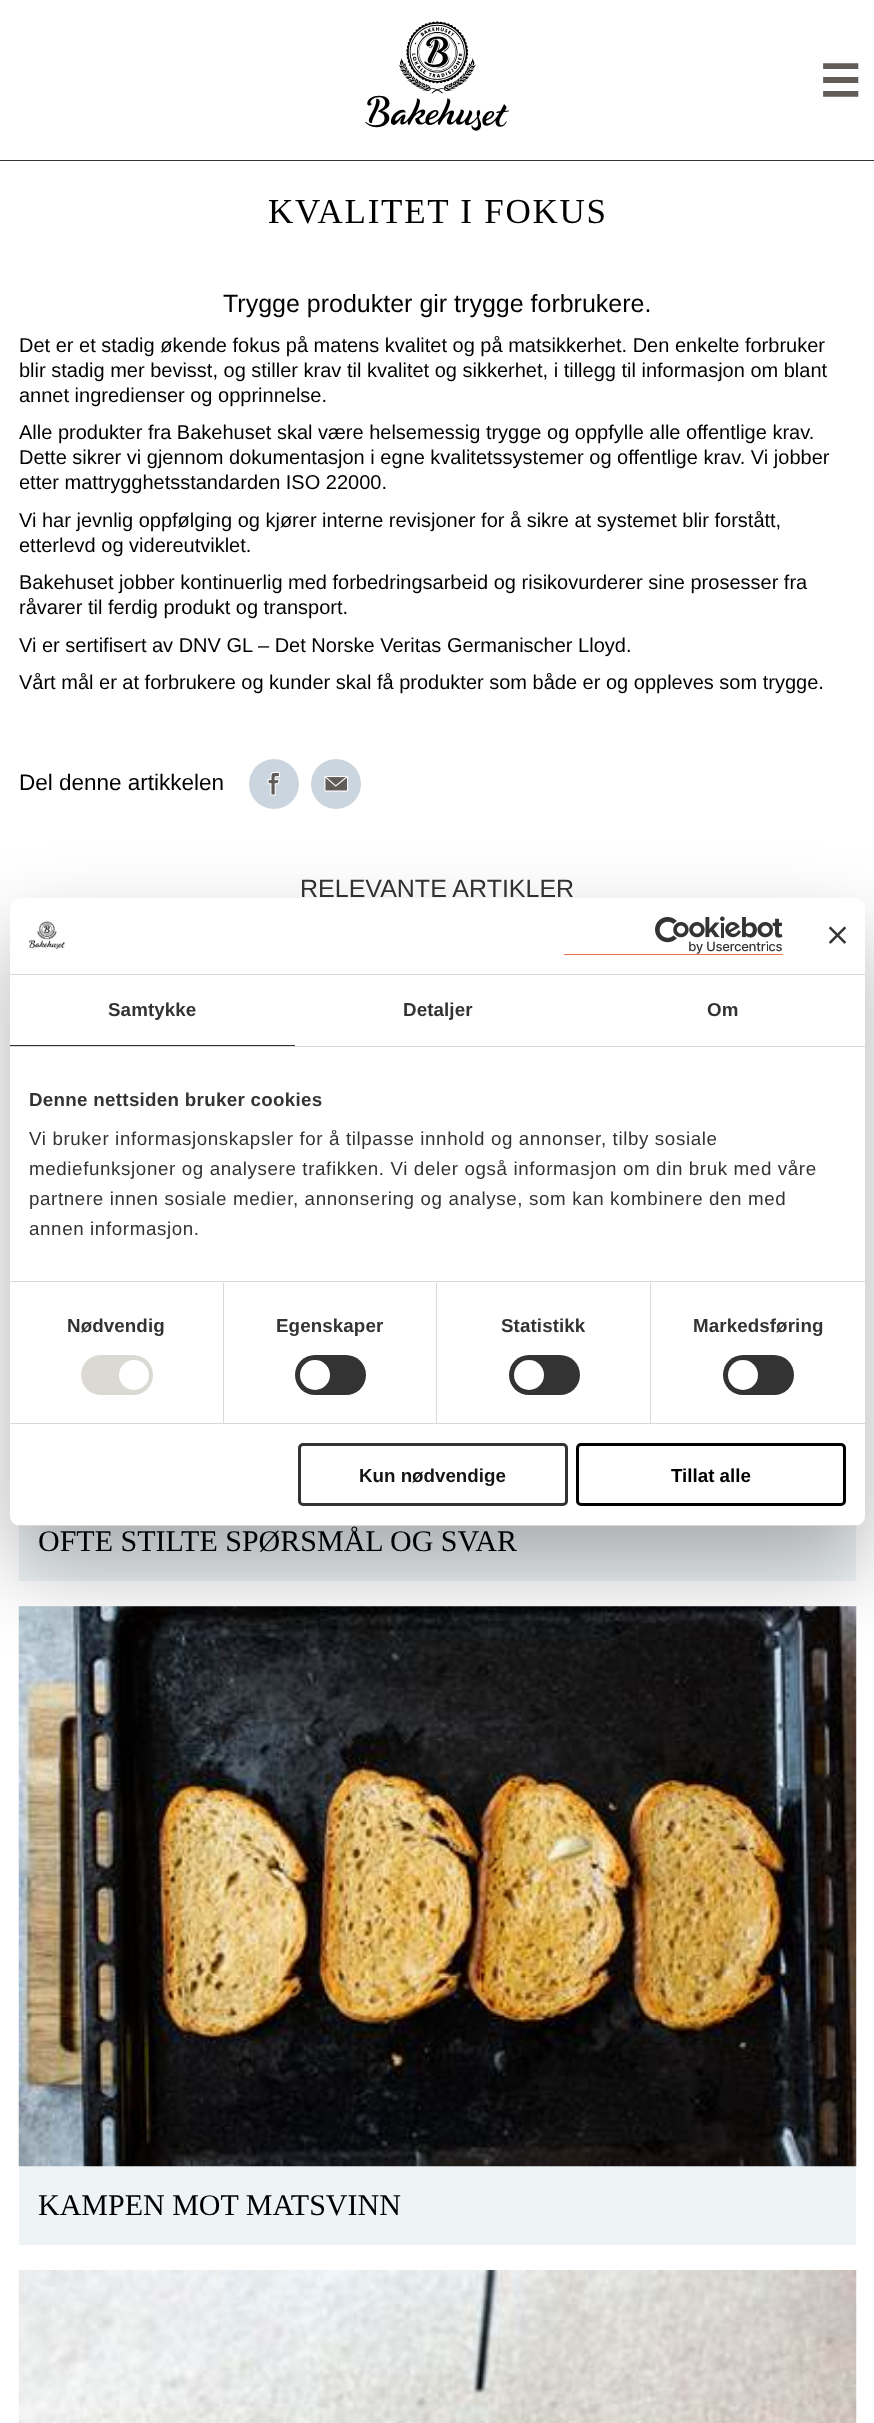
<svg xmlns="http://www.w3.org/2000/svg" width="874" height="2423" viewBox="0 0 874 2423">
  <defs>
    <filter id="blur1" x="-50%" y="-200%" width="200%" height="500%"><feGaussianBlur stdDeviation="42.5"/></filter>
    <clipPath id="clip1"><rect x="10" y="898" width="855" height="628" rx="10"/></clipPath>
  </defs>
  <rect width="100%" height="100%" fill="#ffffff"/>
  <rect x="0" y="160" width="874" height="1" fill="#333333"/>
  <image x="365" y="21" width="144" height="110" href="img1.png"/>
  <image x="823" y="63" width="36" height="34" href="img2.png"/>
  <text x="268" y="223" font-family="Liberation Serif" font-size="35" letter-spacing="1.75" fill="#000000">KVALITET I FOKUS</text>
  <text x="223" y="312" font-family="Liberation Sans" font-size="25" fill="#000000">Trygge produkter gir trygge forbrukere.</text>
  <text x="19" y="352" font-family="Liberation Sans" font-size="20" fill="#000000">Det er et stadig økende fokus på matens kvalitet og på matsikkerhet. Den enkelte forbruker</text>
  <text x="19" y="377" font-family="Liberation Sans" font-size="20" fill="#000000">blir stadig mer bevisst, og stiller krav til kvalitet og sikkerhet, i tillegg til informasjon om blant</text>
  <text x="19" y="402" font-family="Liberation Sans" font-size="20" fill="#000000">annet ingredienser og opprinnelse.</text>
  <text x="19" y="439" font-family="Liberation Sans" font-size="20" fill="#000000">Alle produkter fra Bakehuset skal være helsemessig trygge og oppfylle alle offentlige krav.</text>
  <text x="19" y="464" font-family="Liberation Sans" font-size="20" fill="#000000">Dette sikrer vi gjennom dokumentasjon i egne kvalitetssystemer og offentlige krav. Vi jobber</text>
  <text x="19" y="489" font-family="Liberation Sans" font-size="20" fill="#000000">etter mattrygghetsstandarden ISO 22000.</text>
  <text x="19" y="527" font-family="Liberation Sans" font-size="20" fill="#000000">Vi har jevnlig oppfølging og kjører interne revisjoner for å sikre at systemet blir forstått,</text>
  <text x="19" y="552" font-family="Liberation Sans" font-size="20" fill="#000000">etterlevd og videreutviklet.</text>
  <text x="19" y="589" font-family="Liberation Sans" font-size="20" fill="#000000">Bakehuset jobber kontinuerlig med forbedringsarbeid og risikovurderer sine prosesser fra</text>
  <text x="19" y="614" font-family="Liberation Sans" font-size="20" fill="#000000">råvarer til ferdig produkt og transport.</text>
  <text x="19" y="652" font-family="Liberation Sans" font-size="20" fill="#000000">Vi er sertifisert av DNV GL – Det Norske Veritas Germanischer Lloyd.</text>
  <text x="19" y="689" font-family="Liberation Sans" font-size="20" fill="#000000">Vårt mål er at forbrukere og kunder skal få produkter som både er og oppleves som trygge.</text>
  <text x="19" y="790" font-family="Liberation Sans" font-size="22.5" fill="#000000">Del denne artikkelen</text>
  <circle cx="274" cy="784" r="25" fill="#cad5df"/>
  <image x="267" y="771" width="13" height="25" href="img3.png"/>
  <circle cx="336" cy="784" r="25" fill="#cad5df"/>
  <image x="324" y="776" width="25" height="16" href="img4.png"/>
  <text x="300" y="897" font-family="Liberation Sans" font-size="25" fill="#333333">RELEVANTE ARTIKLER</text>
  <rect x="19" y="1525" width="837" height="56" fill="#eef3f6"/>
  <text x="38" y="1551" font-family="Liberation Serif" font-size="30" fill="#000000">OFTE STILTE SPØRSMÅL OG SVAR</text>
  <rect x="19" y="1606" width="837" height="639" fill="#eef3f6"/>
  <image x="18" y="1606" width="839" height="561" href="img5.png"/>
  <text x="38" y="2215" font-family="Liberation Serif" font-size="30" fill="#000000">KAMPEN MOT MATSVINN</text>
  <image x="18" y="2270" width="839" height="153" href="img6.png"/>
  <rect x="10" y="938" width="855" height="628" rx="10" fill="#000000" fill-opacity="0.3" filter="url(#blur1)"/>
  <rect x="10" y="898" width="855" height="628" rx="10" fill="#ffffff"/>
  <rect x="10" y="974" width="855" height="1" fill="#dbd9d3"/>
  <image x="28" y="921" width="37" height="28" href="img7.png"/>
  <rect x="564" y="954" width="219" height="1" fill="#ec6f4d"/>
  <image x="655" y="916" width="128" height="38" href="img8.png"/>
  <image x="829" y="926" width="17" height="18" href="img9.png"/>
  <rect x="10" y="1046" width="855" height="1" fill="#dbd9d3"/>
  <rect x="10" y="1045" width="285" height="1" fill="#333333"/>
  <text x="108" y="1016" font-family="Liberation Sans" font-size="18.75" font-weight="bold" letter-spacing="0.1" fill="#333333">Samtykke</text>
  <text x="403" y="1016" font-family="Liberation Sans" font-size="18.75" font-weight="bold" letter-spacing="0.1" fill="#333333">Detaljer</text>
  <text x="707" y="1016" font-family="Liberation Sans" font-size="18.75" font-weight="bold" letter-spacing="0.1" fill="#333333">Om</text>
  <rect x="10" y="1281" width="855" height="1" fill="#dbd9d3"/>
  <text x="29" y="1106" font-family="Liberation Sans" font-size="18.75" font-weight="bold" letter-spacing="0.3" fill="#333333">Denne nettsiden bruker cookies</text>
  <text x="29" y="1145" font-family="Liberation Sans" font-size="18.75" letter-spacing="0.62" fill="#333333">Vi bruker informasjonskapsler for å tilpasse innhold og annonser, tilby sosiale</text>
  <text x="29" y="1175" font-family="Liberation Sans" font-size="18.75" letter-spacing="0.62" fill="#333333">mediefunksjoner og analysere trafikken. Vi deler også informasjon om din bruk med våre</text>
  <text x="29" y="1205" font-family="Liberation Sans" font-size="18.75" letter-spacing="0.62" fill="#333333">partnere innen sosiale medier, annonsering og analyse, som kan kombinere den med</text>
  <text x="29" y="1235" font-family="Liberation Sans" font-size="18.75" letter-spacing="0.62" fill="#333333">annen informasjon.</text>
  <rect x="10" y="1423" width="855" height="1" fill="#dbd9d3"/>
  <rect x="223" y="1283" width="1" height="140" fill="#dbd9d3"/>
  <text x="67" y="1332" font-family="Liberation Sans" font-size="18.75" font-weight="bold" letter-spacing="0.1" fill="#333333">Nødvendig</text>
  <rect x="81" y="1355" width="72" height="40" rx="20" fill="#dbd9d3"/>
  <circle cx="134" cy="1375" r="15" fill="#ffffff"/>
  <rect x="436" y="1283" width="1" height="140" fill="#dbd9d3"/>
  <text x="276" y="1332" font-family="Liberation Sans" font-size="18.75" font-weight="bold" letter-spacing="0.1" fill="#333333">Egenskaper</text>
  <rect x="295" y="1355" width="71" height="40" rx="20" fill="#333333"/>
  <circle cx="315" cy="1375" r="15" fill="#ffffff"/>
  <rect x="650" y="1283" width="1" height="140" fill="#dbd9d3"/>
  <text x="501" y="1332" font-family="Liberation Sans" font-size="18.75" font-weight="bold" letter-spacing="0.1" fill="#333333">Statistikk</text>
  <rect x="509" y="1355" width="71" height="40" rx="20" fill="#333333"/>
  <circle cx="529" cy="1375" r="15" fill="#ffffff"/>
  <text x="693" y="1332" font-family="Liberation Sans" font-size="18.75" font-weight="bold" letter-spacing="0.1" fill="#333333">Markedsføring</text>
  <rect x="723" y="1355" width="71" height="40" rx="20" fill="#333333"/>
  <circle cx="743" cy="1375" r="15" fill="#ffffff"/>
  <g clip-path="url(#clip1)">
    <rect x="10" y="1525" width="855" height="1" fill="#dbd9d3"/>
  </g>
  <rect x="299.5" y="1444.5" width="267" height="60" rx="3.5" fill="none" stroke="#333333" stroke-width="3"/>
  <text x="359" y="1482" font-family="Liberation Sans" font-size="18.75" font-weight="bold" fill="#141414">Kun nødvendige</text>
  <rect x="577.5" y="1444.5" width="267" height="60" rx="3.5" fill="none" stroke="#000000" stroke-width="3"/>
  <text x="671" y="1482" font-family="Liberation Sans" font-size="18.75" font-weight="bold" fill="#000000">Tillat alle</text>
</svg>
